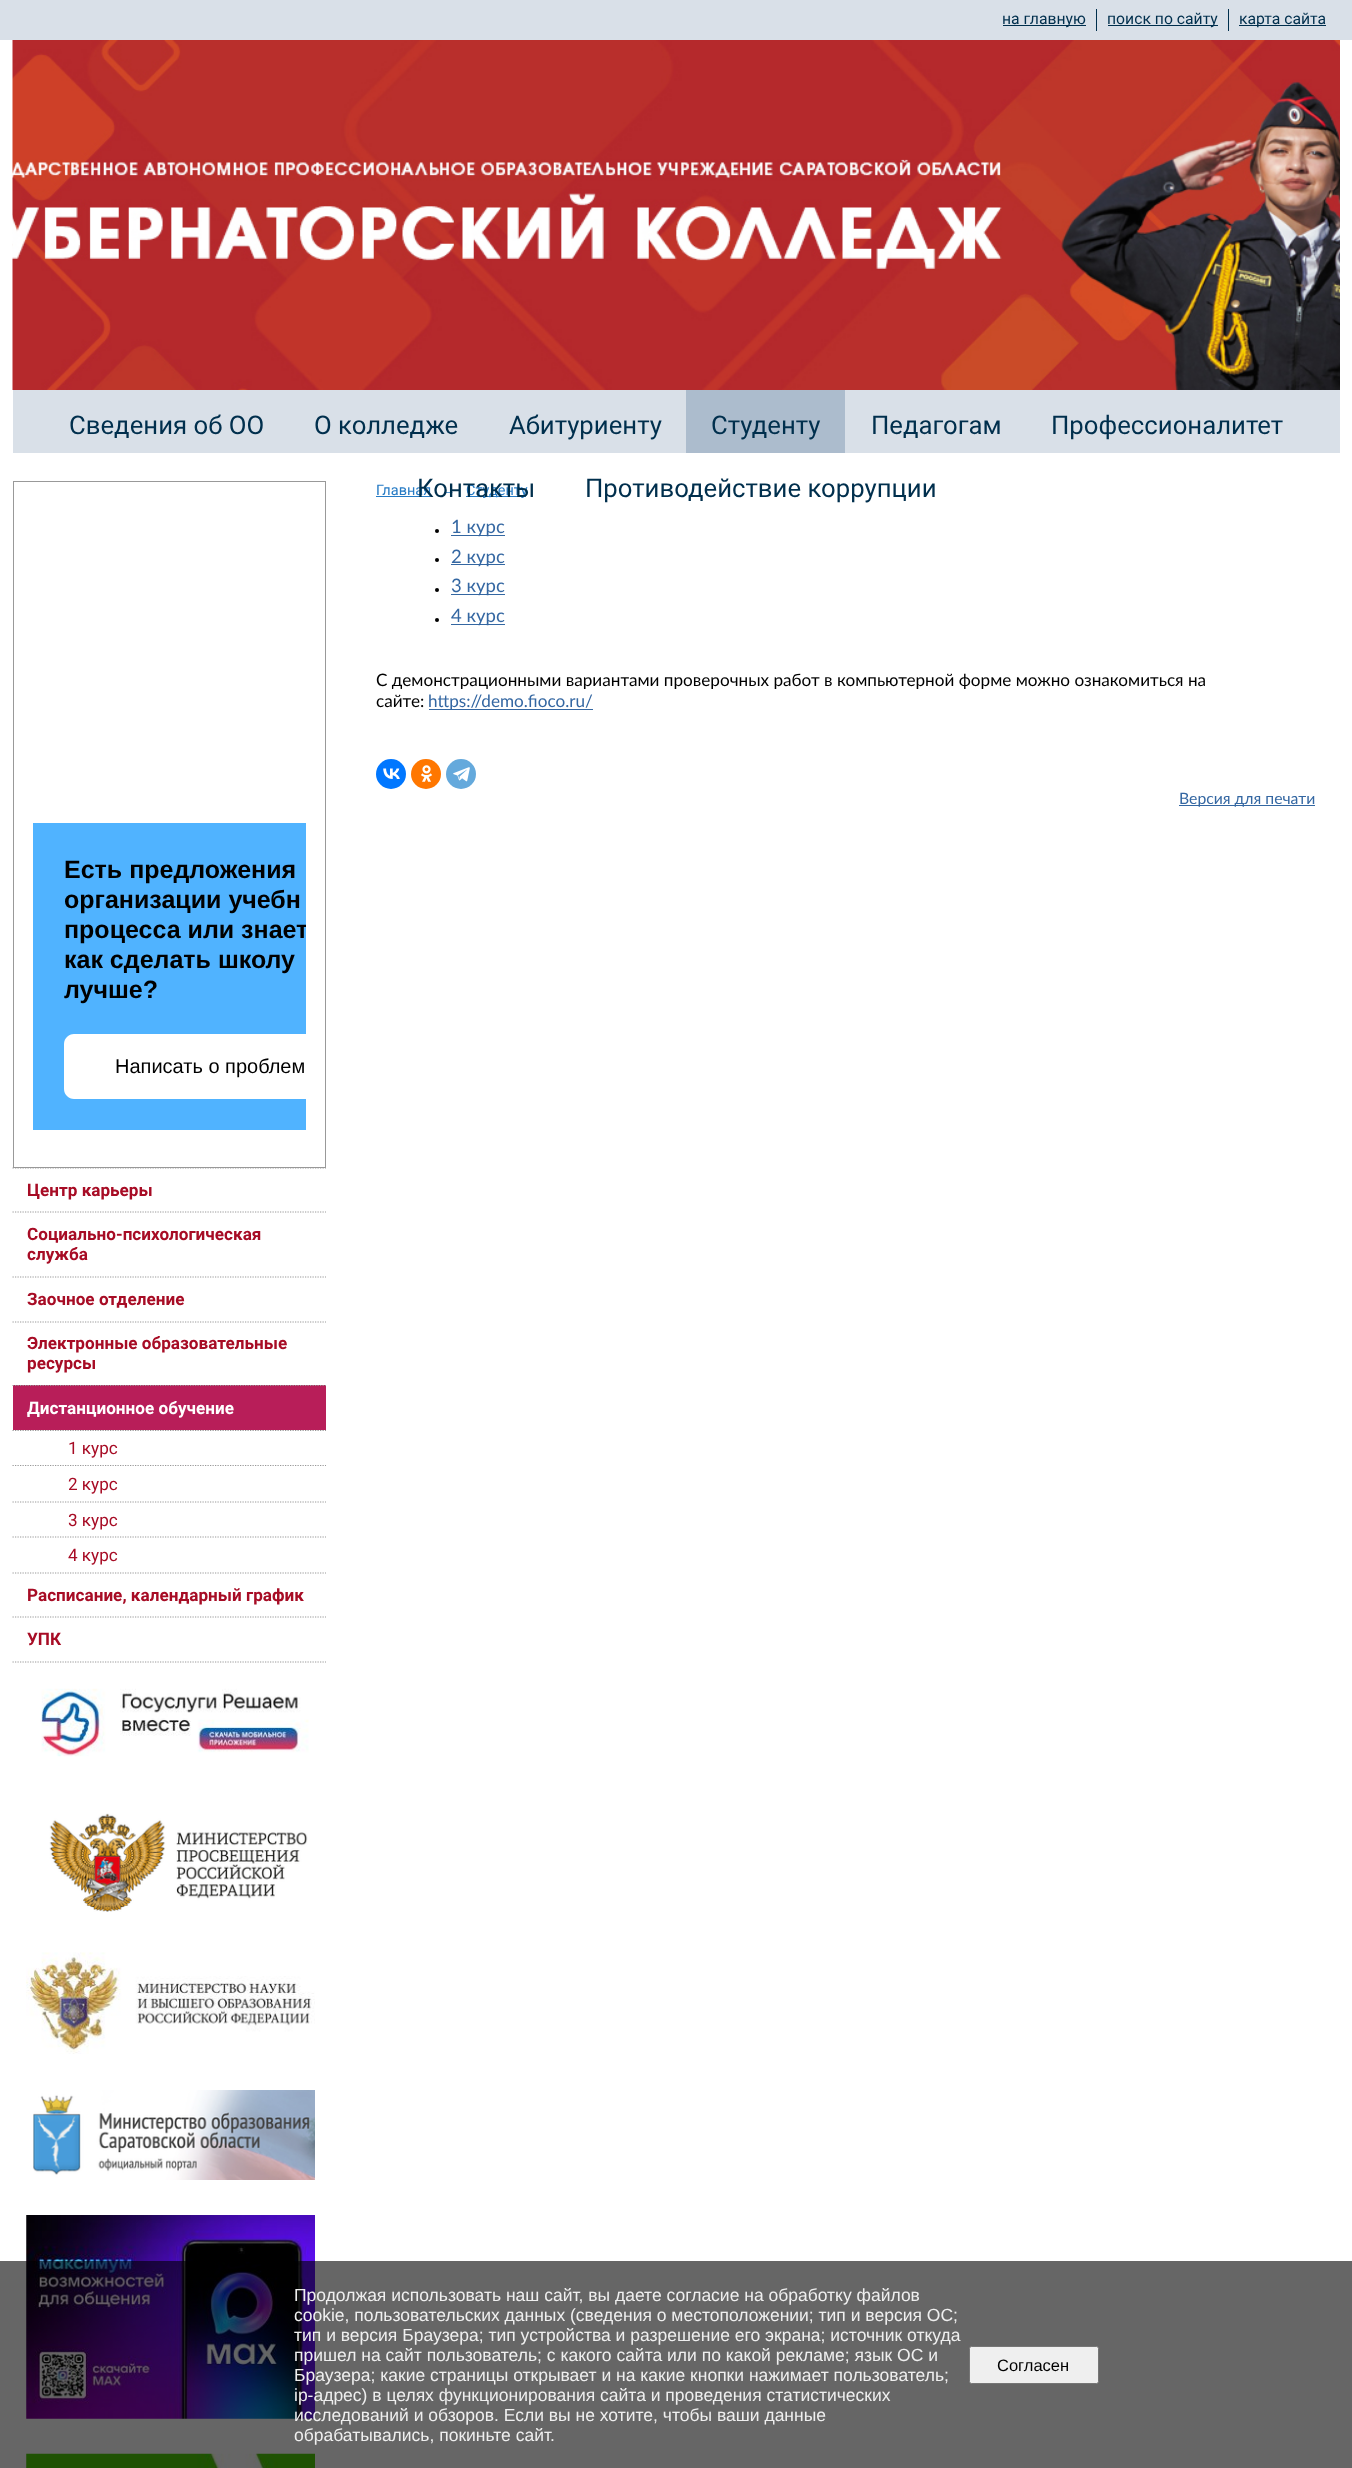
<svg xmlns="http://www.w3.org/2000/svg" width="1352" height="2468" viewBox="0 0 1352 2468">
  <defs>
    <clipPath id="clip1"><rect x="33" y="493" width="273" height="637"/></clipPath>
  </defs>
  <rect width="100%" height="100%" fill="#ffffff"/>
  <rect x="0" y="0" width="1352" height="40" fill="#d9e0e8"/>
  <rect x="1003" y="25" width="83" height="1" fill="#002f4d"/>
  <text x="1002" y="24" font-family="Roboto" font-size="15.75" fill="#002f4d">на главную</text>
  <rect x="1096" y="9" width="1" height="22" fill="#002f4d"/>
  <rect x="1108" y="25" width="110" height="1" fill="#002f4d"/>
  <text x="1107" y="24" font-family="Roboto" font-size="15.75" fill="#002f4d">поиск по сайту</text>
  <rect x="1228" y="9" width="1" height="22" fill="#002f4d"/>
  <rect x="1239" y="25" width="87" height="1" fill="#002f4d"/>
  <text x="1239" y="24" font-family="Roboto" font-size="15.75" fill="#002f4d">карта сайта</text>
  <image x="12" y="40" width="1328" height="350" href="img1.png"/>
  <rect x="13" y="390" width="1327" height="63" fill="#d9e0e8"/>
  <text x="69" y="434" font-family="Roboto" font-size="25.75" fill="#002f4d">Сведения об ОО</text>
  <text x="314" y="434" font-family="Roboto" font-size="25.75" fill="#002f4d">О колледже</text>
  <text x="509" y="434" font-family="Roboto" font-size="25.75" fill="#002f4d">Абитуриенту</text>
  <rect x="686" y="390" width="159" height="63" fill="#acbccd"/>
  <text x="711" y="434" font-family="Roboto" font-size="25.75" fill="#002f4d">Студенту</text>
  <text x="871" y="434" font-family="Roboto" font-size="25.75" fill="#002f4d">Педагогам</text>
  <text x="1051" y="434" font-family="Roboto" font-size="25.75" fill="#002f4d">Профессионалитет</text>
  <text x="376" y="495" font-family="Roboto" font-size="14.5" fill="#267bc5">Главная</text>
  <rect x="376" y="496" width="54" height="1" fill="#267bc5"/>
  <text x="441" y="495" font-family="Liberation Sans" font-size="14.5" font-style="italic" fill="#267bc5">→</text>
  <rect x="466" y="496" width="60" height="1" fill="#267bc5"/>
  <text x="466" y="495" font-family="Roboto" font-size="14.5" fill="#267bc5">Студенту</text>
  <text x="417" y="497" font-family="Roboto" font-size="25.75" fill="#002f4d">Контакты</text>
  <text x="585" y="497" font-family="Roboto" font-size="25.75" fill="#002f4d">Противодействие коррупции</text>
  <circle cx="437" cy="531" r="2" fill="#000000"/>
  <rect x="451" y="535" width="54" height="1" fill="#3467a2"/>
  <text x="451" y="533" font-family="Lato" font-size="18.5" fill="#3467a2">1 курс</text>
  <circle cx="437" cy="560" r="2" fill="#000000"/>
  <rect x="451" y="564" width="54" height="1" fill="#3467a2"/>
  <text x="451" y="563" font-family="Lato" font-size="18.5" fill="#3467a2">2 курс</text>
  <circle cx="437" cy="590" r="2" fill="#000000"/>
  <rect x="451" y="594" width="54" height="1" fill="#3467a2"/>
  <text x="451" y="592" font-family="Lato" font-size="18.5" fill="#3467a2">3 курс</text>
  <circle cx="437" cy="620" r="2" fill="#000000"/>
  <rect x="451" y="624" width="54" height="1" fill="#3467a2"/>
  <text x="451" y="622" font-family="Lato" font-size="18.5" fill="#3467a2">4 курс</text>
  <text x="376" y="686" font-family="Lato" font-size="17.15" fill="#000000">C демонстрационными вариантами проверочных работ в компьютерной форме можно ознакомиться на</text>
  <text x="376" y="707" font-family="Lato" font-size="17.15" fill="#000000">сайте:</text>
  <rect x="429" y="709" width="164" height="1" fill="#3467a2"/>
  <text x="428" y="707" font-family="Lato" font-size="17.15" fill="#3467a2">https://demo.fioco.ru/</text>
  <circle cx="391" cy="774" r="15" fill="#0077ff"/>
  <image x="383" y="768" width="17" height="11" href="img2.png"/>
  <circle cx="426" cy="774" r="15" fill="#ff7700"/>
  <image x="421" y="765" width="12" height="17" href="img3.png"/>
  <circle cx="461" cy="774" r="15" fill="#64a9dc"/>
  <image x="453" y="767" width="17" height="15" href="img4.png"/>
  <rect x="1179" y="805" width="136" height="1" fill="#3467a2"/>
  <text x="1179" y="804" font-family="Lato" font-size="15.75" fill="#3467a2">Версия для печати</text>
  <rect x="13.5" y="481.5" width="312" height="686" fill="none" stroke="#999999"/>
  <rect x="33" y="823" width="273" height="307" fill="#50b3ff"/>
  <text x="64" y="878" font-family="Liberation Sans" font-size="25" font-weight="bold" fill="#000000">Есть предложения</text>
  <text x="64" y="908" font-family="Liberation Sans" font-size="25" font-weight="bold" fill="#000000">организации учебн</text>
  <g clip-path="url(#clip1)">
    <text x="64" y="938" font-family="Liberation Sans" font-size="25" font-weight="bold" fill="#000000">процесса или знает</text>
  </g>
  <text x="64" y="968" font-family="Liberation Sans" font-size="25" font-weight="bold" fill="#000000">как сделать школу</text>
  <text x="64" y="998" font-family="Liberation Sans" font-size="25" font-weight="bold" fill="#000000">лучше?</text>
  <path d="M74 1034H306V1099H74C68.5 1099 64 1094.5 64 1089V1044C64 1038.5 68.5 1034 74 1034Z" fill="#ffffff"/>
  <text x="115" y="1073" font-family="Liberation Sans" font-size="20" fill="#000000">Написать о проблем</text>
  <path d="M12.5 1662H326" fill="none" stroke="#999999" stroke-width="1.2" stroke-dasharray="1.25 1.25"/>
  <path d="M12.5 1168H326" fill="none" stroke="#999999" stroke-width="1.2" stroke-dasharray="1.25 1.25"/>
  <text x="27" y="1196" font-family="Roboto" font-size="17.15" font-weight="bold" fill="#a70c25">Центр карьеры</text>
  <path d="M12.5 1212H326" fill="none" stroke="#999999" stroke-width="1.2" stroke-dasharray="1.25 1.25"/>
  <text x="27" y="1240" font-family="Roboto" font-size="17.15" font-weight="bold" fill="#a70c25">Социально-психологическая</text>
  <text x="27" y="1260" font-family="Roboto" font-size="17.15" font-weight="bold" fill="#a70c25">служба</text>
  <path d="M12.5 1277H326" fill="none" stroke="#999999" stroke-width="1.2" stroke-dasharray="1.25 1.25"/>
  <text x="27" y="1305" font-family="Roboto" font-size="17.15" font-weight="bold" fill="#a70c25">Заочное отделение</text>
  <path d="M12.5 1322H326" fill="none" stroke="#999999" stroke-width="1.2" stroke-dasharray="1.25 1.25"/>
  <text x="27" y="1349" font-family="Roboto" font-size="17.15" font-weight="bold" fill="#a70c25">Электронные образовательные</text>
  <text x="27" y="1369" font-family="Roboto" font-size="17.15" font-weight="bold" fill="#a70c25">ресурсы</text>
  <rect x="13" y="1385" width="313" height="45" fill="#b81e59"/>
  <path d="M12.5 1385.5H326" fill="none" stroke="#999999" stroke-width="1.2" stroke-dasharray="1.25 1.25"/>
  <text x="27" y="1414" font-family="Roboto" font-size="17.15" font-weight="bold" fill="#ffffff">Дистанционное обучение</text>
  <path d="M12.5 1430.5H326" fill="none" stroke="#999999" stroke-width="1.2" stroke-dasharray="1.25 1.25"/>
  <text x="68" y="1454" font-family="Roboto" font-size="17.15" fill="#a70c25">1 курс</text>
  <path d="M12.5 1465.5H326" fill="none" stroke="#999999" stroke-width="1.2" stroke-dasharray="1.25 1.25"/>
  <text x="68" y="1490" font-family="Roboto" font-size="17.15" fill="#a70c25">2 курс</text>
  <path d="M12.5 1502H326" fill="none" stroke="#999999" stroke-width="1.2" stroke-dasharray="1.25 1.25"/>
  <text x="68" y="1526" font-family="Roboto" font-size="17.15" fill="#a70c25">3 курс</text>
  <path d="M12.5 1537H326" fill="none" stroke="#999999" stroke-width="1.2" stroke-dasharray="1.25 1.25"/>
  <text x="68" y="1561" font-family="Roboto" font-size="17.15" fill="#a70c25">4 курс</text>
  <path d="M12.5 1573H326" fill="none" stroke="#999999" stroke-width="1.2" stroke-dasharray="1.25 1.25"/>
  <text x="27" y="1601" font-family="Roboto" font-size="17.15" font-weight="bold" fill="#a70c25">Расписание, календарный график</text>
  <path d="M12.5 1617H326" fill="none" stroke="#999999" stroke-width="1.2" stroke-dasharray="1.25 1.25"/>
  <text x="27" y="1645" font-family="Roboto" font-size="17.15" font-weight="bold" fill="#a70c25">УПК</text>
  <image x="40" y="1688" width="269" height="69" href="img5.png"/>
  <image x="49" y="1813" width="259" height="99" href="img6.png"/>
  <image x="26" y="1952" width="289" height="102" href="img7.png"/>
  <image x="33" y="2090" width="282" height="90" href="img8.png"/>
  <image x="26" y="2215" width="289" height="204" href="img9.png"/>
  <image x="26" y="2453" width="289" height="15" href="img10.png"/>
  <rect x="0" y="2261" width="1352" height="207" fill="#000000" fill-opacity="0.6"/>
  <text x="294" y="2301" font-family="Liberation Sans" font-size="17.5" fill="#efefef">Продолжая использовать наш сайт, вы даете согласие на обработку файлов</text>
  <text x="294" y="2321" font-family="Liberation Sans" font-size="17.5" fill="#efefef">cookie, пользовательских данных (сведения о местоположении; тип и версия ОС;</text>
  <text x="294" y="2341" font-family="Liberation Sans" font-size="17.5" fill="#efefef">тип и версия Браузера; тип устройства и разрешение его экрана; источник откуда</text>
  <text x="294" y="2361" font-family="Liberation Sans" font-size="17.5" fill="#efefef">пришел на сайт пользователь; с какого сайта или по какой рекламе; язык ОС и</text>
  <text x="294" y="2381" font-family="Liberation Sans" font-size="17.5" fill="#efefef">Браузера; какие страницы открывает и на какие кнопки нажимает пользователь;</text>
  <text x="294" y="2401" font-family="Liberation Sans" font-size="17.5" fill="#efefef">ip-адрес) в целях функционирования сайта и проведения статистических</text>
  <text x="294" y="2421" font-family="Liberation Sans" font-size="17.5" fill="#efefef">исследований и обзоров. Если вы не хотите, чтобы ваши данные</text>
  <text x="294" y="2441" font-family="Liberation Sans" font-size="17.5" fill="#efefef">обрабатывались, покиньте сайт.</text>
  <rect x="969.5" y="2346.5" width="129" height="37" rx="2" fill="#efefef" stroke="#767676"/>
  <text x="997" y="2371" font-family="Liberation Sans" font-size="16.5" fill="#000000">Согласен</text>
</svg>
